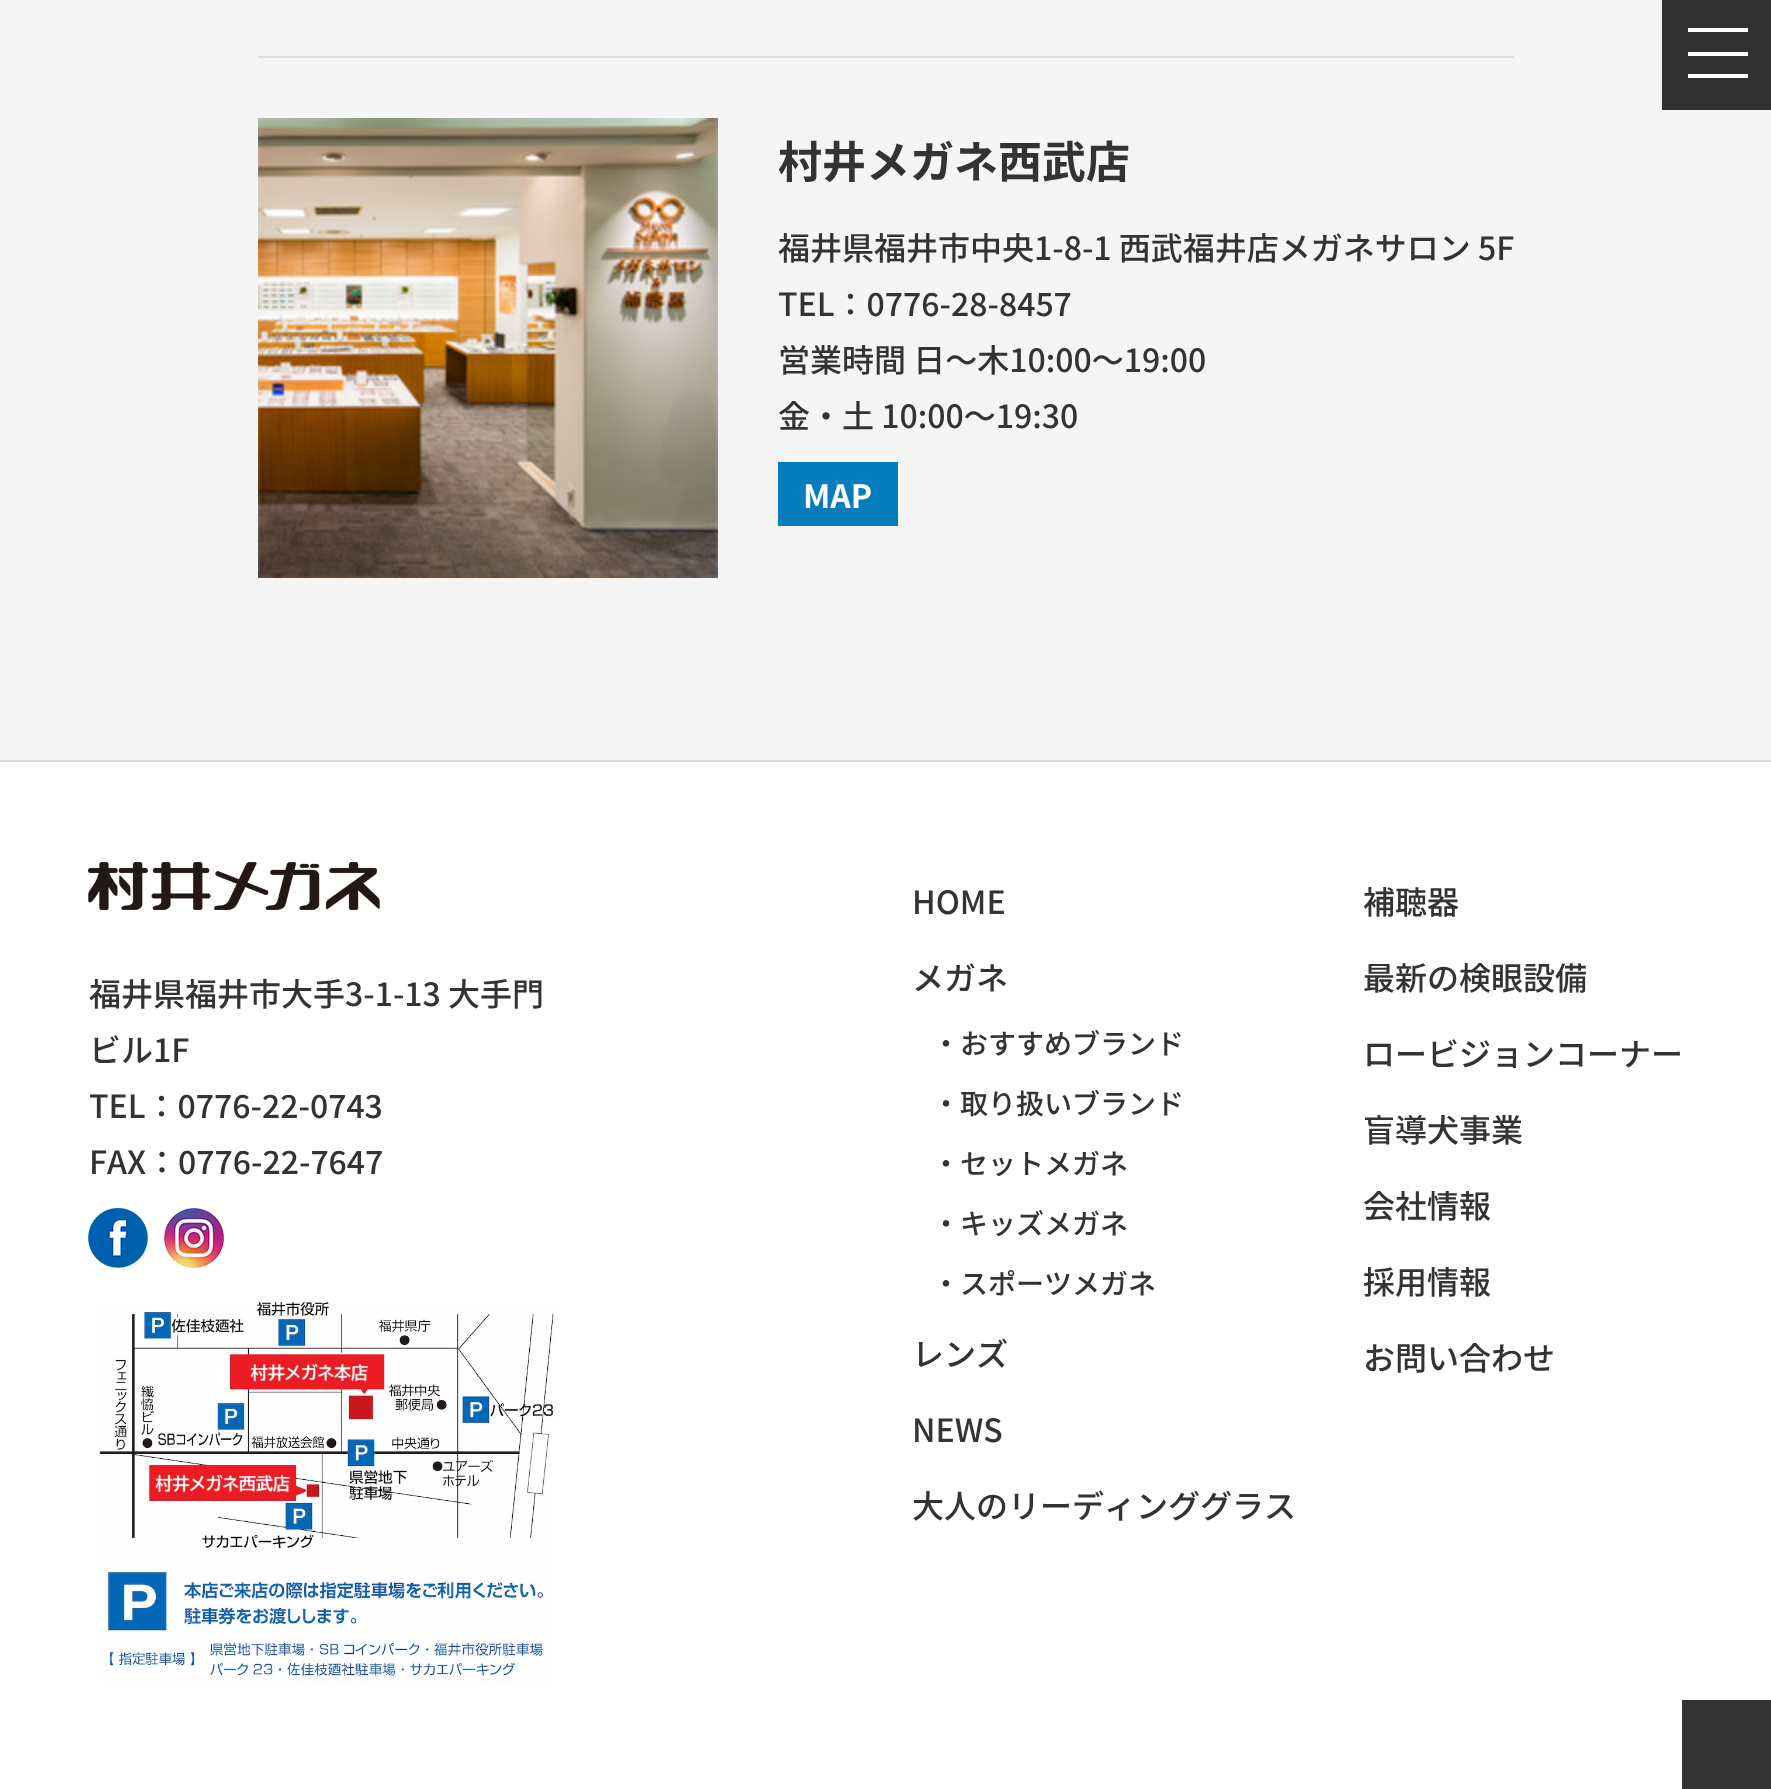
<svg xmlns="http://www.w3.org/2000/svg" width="1771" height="1789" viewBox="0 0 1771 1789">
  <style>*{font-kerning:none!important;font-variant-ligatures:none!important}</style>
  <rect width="100%" height="100%" fill="#ffffff"/>
  <rect x="0" y="0" width="1771" height="760" fill="#f5f5f5"/>
  <rect x="1662" y="0" width="109" height="110" fill="#313131"/>
  <rect x="1688" y="52" width="60" height="4" fill="#ffffff"/>
  <rect x="1688" y="28" width="60" height="4" fill="#ffffff"/>
  <rect x="1688" y="74" width="60" height="4" fill="#ffffff"/>
  <rect x="0" y="760" width="1771" height="2" fill="#dddddd"/>
  <rect x="258" y="56" width="1256" height="2" fill="#dddddd"/>
  <image x="258" y="118" width="460" height="460" href="img1.png"/>
  <text x="778" y="178" font-family="Noto Sans JP" font-size="44" font-weight="bold" fill="#333333">村井メガネ西武店</text>
  <text x="778" y="260" font-family="Noto Sans JP" font-size="32" font-weight="500" fill="#333333">福井県福井市中央1-8-1 西武福井店メガネサロン 5F</text>
  <text x="778" y="316" font-family="Noto Sans JP" font-size="32" font-weight="500" fill="#333333">TEL：0776-28-8457</text>
  <text x="778" y="372" font-family="Noto Sans JP" font-size="32" font-weight="500" fill="#333333">営業時間 日～木10:00～19:00</text>
  <text x="778" y="428" font-family="Noto Sans JP" font-size="32" font-weight="500" fill="#333333">金・土 10:00～19:30</text>
  <rect x="778" y="462" width="120" height="64" fill="#057dbc"/>
  <text x="803" y="508" font-family="Noto Sans JP" font-size="32" font-weight="bold" fill="#ffffff">MAP</text>
  <image x="88" y="862" width="292" height="48" href="img2.png"/>
  <text x="89" y="1006" font-family="Noto Sans JP" font-size="32" font-weight="500" fill="#333333">福井県福井市大手3-1-13 大手門</text>
  <text x="89" y="1062" font-family="Noto Sans JP" font-size="32" font-weight="500" fill="#333333">ビル1F</text>
  <text x="89" y="1118" font-family="Noto Sans JP" font-size="32" font-weight="500" fill="#333333">TEL：0776-22-0743</text>
  <text x="89" y="1174" font-family="Noto Sans JP" font-size="32" font-weight="500" fill="#333333">FAX：0776-22-7647</text>
  <image x="88" y="1208" width="60" height="60" href="img3.png"/>
  <image x="164" y="1208" width="60" height="60" href="img4.png"/>
  <image x="99" y="1301" width="456" height="383" href="img5.png"/>
  <text x="912" y="914" font-family="Noto Sans JP" font-size="32" font-weight="500" fill="#333333">HOME</text>
  <text x="912" y="990" font-family="Noto Sans JP" font-size="32" font-weight="500" fill="#333333">メガネ</text>
  <text x="932" y="1054" font-family="Noto Sans JP" font-size="28" font-weight="500" fill="#333333">・おすすめブランド</text>
  <text x="932" y="1114" font-family="Noto Sans JP" font-size="28" font-weight="500" fill="#333333">・取り扱いブランド</text>
  <text x="932" y="1174" font-family="Noto Sans JP" font-size="28" font-weight="500" fill="#333333">・セットメガネ</text>
  <text x="932" y="1234" font-family="Noto Sans JP" font-size="28" font-weight="500" fill="#333333">・キッズメガネ</text>
  <text x="932" y="1294" font-family="Noto Sans JP" font-size="28" font-weight="500" fill="#333333">・スポーツメガネ</text>
  <text x="912" y="1366" font-family="Noto Sans JP" font-size="32" font-weight="500" fill="#333333">レンズ</text>
  <text x="912" y="1442" font-family="Noto Sans JP" font-size="32" font-weight="500" fill="#333333">NEWS</text>
  <text x="912" y="1518" font-family="Noto Sans JP" font-size="32" font-weight="500" fill="#333333">大人のリーディンググラス</text>
  <text x="1363" y="914" font-family="Noto Sans JP" font-size="32" font-weight="500" fill="#333333">補聴器</text>
  <text x="1363" y="990" font-family="Noto Sans JP" font-size="32" font-weight="500" fill="#333333">最新の検眼設備</text>
  <text x="1363" y="1066" font-family="Noto Sans JP" font-size="32" font-weight="500" fill="#333333">ロービジョンコーナー</text>
  <text x="1363" y="1142" font-family="Noto Sans JP" font-size="32" font-weight="500" fill="#333333">盲導犬事業</text>
  <text x="1363" y="1218" font-family="Noto Sans JP" font-size="32" font-weight="500" fill="#333333">会社情報</text>
  <text x="1363" y="1294" font-family="Noto Sans JP" font-size="32" font-weight="500" fill="#333333">採用情報</text>
  <text x="1363" y="1370" font-family="Noto Sans JP" font-size="32" font-weight="500" fill="#333333">お問い合わせ</text>
  <rect x="1682" y="1700" width="89" height="89" fill="#333333"/>
</svg>
